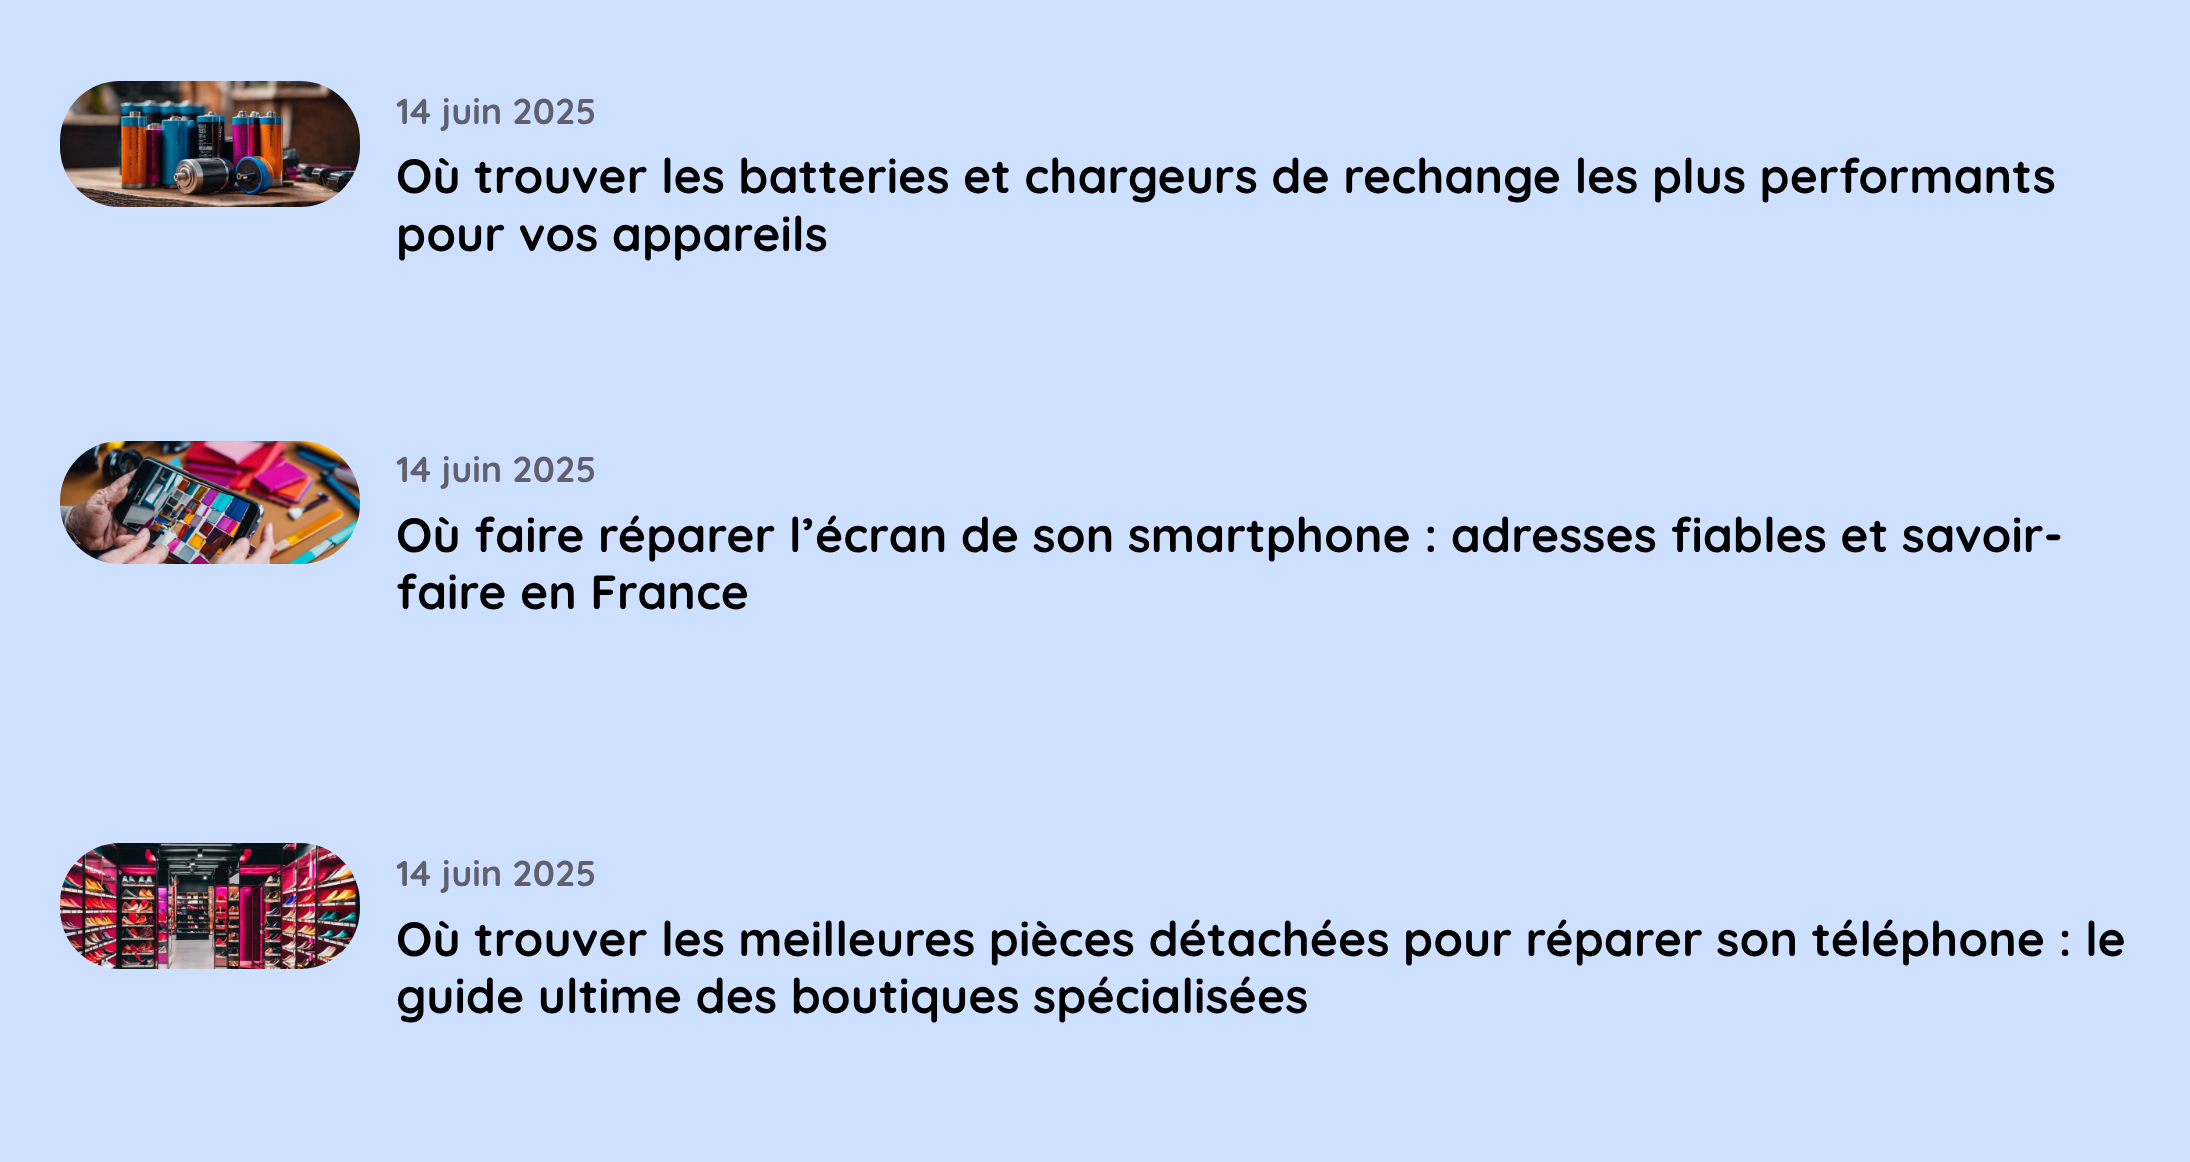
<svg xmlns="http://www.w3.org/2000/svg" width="2190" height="1162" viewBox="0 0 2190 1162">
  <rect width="100%" height="100%" fill="#cee0ff"/>
  <image x="60" y="81" width="300" height="126" href="img1.png"/>
  <text x="396" y="124" font-family="Quicksand" font-size="36" font-weight="bold" fill="#60606e">14 juin 2025</text>
  <text x="396" y="193" font-family="Quicksand" font-size="48" font-weight="bold" fill="#000000">Où trouver les batteries et chargeurs de rechange les plus performants</text>
  <text x="396" y="251" font-family="Quicksand" font-size="48" font-weight="bold" fill="#000000">pour vos appareils</text>
  <image x="60" y="441" width="300" height="123" href="img2.png"/>
  <text x="396" y="482" font-family="Quicksand" font-size="36" font-weight="bold" fill="#60606e">14 juin 2025</text>
  <text x="396" y="552" font-family="Quicksand" font-size="48" font-weight="bold" fill="#000000">Où faire réparer l’écran de son smartphone : adresses fiables et savoir-</text>
  <text x="396" y="609" font-family="Quicksand" font-size="48" font-weight="bold" fill="#000000">faire en France</text>
  <image x="60" y="843" width="300" height="126" href="img3.png"/>
  <text x="396" y="886" font-family="Quicksand" font-size="36" font-weight="bold" fill="#60606e">14 juin 2025</text>
  <text x="396" y="956" font-family="Quicksand" font-size="48" font-weight="bold" fill="#000000">Où trouver les meilleures pièces détachées pour réparer son téléphone : le</text>
  <text x="396" y="1013" font-family="Quicksand" font-size="48" font-weight="bold" fill="#000000">guide ultime des boutiques spécialisées</text>
</svg>
